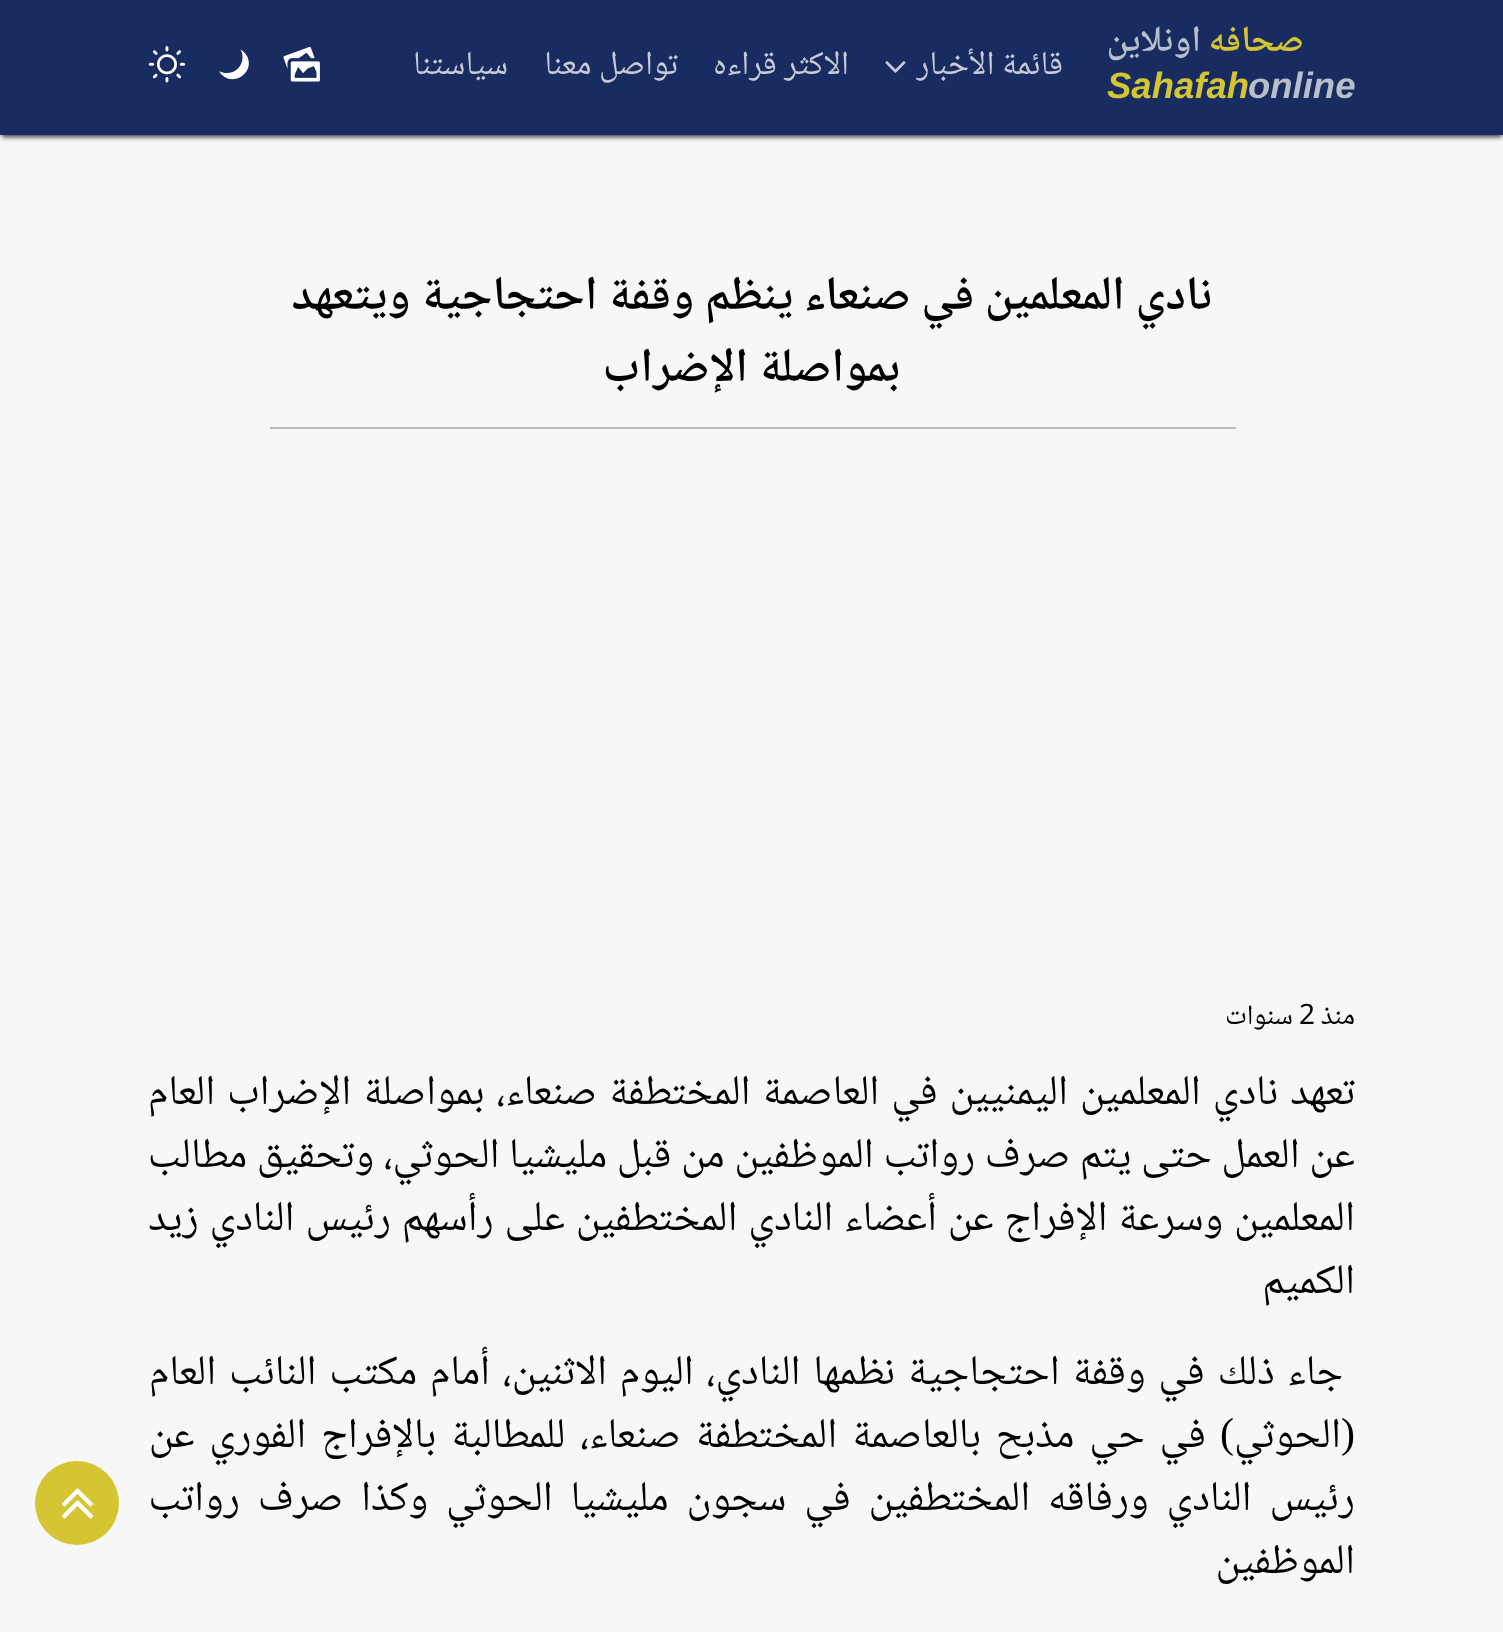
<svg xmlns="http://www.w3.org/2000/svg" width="1503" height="1632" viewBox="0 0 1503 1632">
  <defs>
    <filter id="blur1" x="-50%" y="-200%" width="200%" height="500%"><feGaussianBlur stdDeviation="2.5"/></filter>
  </defs>
  <rect width="100%" height="100%" fill="#f7f7f7"/>
  <rect x="2" y="5" width="1500" height="132" fill="#333333" fill-opacity="0.99" filter="url(#blur1)"/>
  <rect x="0" y="0" width="1503" height="135" fill="#182c61"/>
  <text x="1304" y="51" font-family="Noto Naskh Arabic" font-size="36.5" font-weight="600" direction="rtl" fill="#d5c533">صحافه</text>
  <text x="1201" y="51" font-family="Noto Naskh Arabic" font-size="36.5" font-weight="600" direction="rtl" fill="#b6bfca">اونلاين</text>
  <text x="1248" y="98" font-family="Liberation Sans" font-size="36.5" font-weight="bold" font-style="italic" fill="#b6bfca">online</text>
  <text x="1107" y="98" font-family="Liberation Sans" font-size="36.5" font-weight="bold" font-style="italic" fill="#d5c533">Sahafah</text>
  <text x="1063" y="74" font-family="Noto Naskh Arabic" font-size="33.5" direction="rtl" fill="#c7cbd5">قائمة الأخبار</text>
  <image x="885" y="61" width="21" height="12" href="img1.png"/>
  <text x="849" y="74" font-family="Noto Naskh Arabic" font-size="33.5" direction="rtl" fill="#c7cbd5">الاكثر قراءه</text>
  <text x="678" y="74" font-family="Noto Naskh Arabic" font-size="33.5" direction="rtl" fill="#c7cbd5">تواصل معنا</text>
  <text x="508" y="74" font-family="Noto Naskh Arabic" font-size="33.5" direction="rtl" fill="#c7cbd5">سياستنا</text>
  <image x="283" y="46" width="37" height="36" href="img2.png"/>
  <path d="M238 68.5C243 63.5 244 55.5 240.5 49.5C243.5 51 246 54 247.5 57C255 75 229 88.5 219 71C225 74.5 233 73.5 238 68.5Z" fill="#ffffff"/>
  <image x="148" y="46" width="38" height="37" href="img3.png"/>
  <rect x="270" y="427" width="966" height="2" fill="#bababa"/>
  <text x="1212" y="309" font-family="Noto Naskh Arabic" font-size="47.6" font-weight="600" direction="rtl" fill="#000000">نادي المعلمين في صنعاء ينظم وقفة احتجاجية ويتعهد</text>
  <text x="900" y="381" font-family="Noto Naskh Arabic" font-size="47.6" font-weight="600" direction="rtl" fill="#000000">بمواصلة الإضراب</text>
  <text x="1355" y="1024" font-family="Noto Naskh Arabic" font-size="28" direction="rtl" fill="#000000">منذ</text>
  <text x="1299" y="1024" font-family="Noto Naskh Arabic" font-size="28" fill="#000000">2</text>
  <text x="1293" y="1024" font-family="Noto Naskh Arabic" font-size="28" direction="rtl" fill="#000000">سنوات</text>
  <text x="1355" y="1104" word-spacing="2.6" font-family="Noto Naskh Arabic" font-size="42" direction="rtl" fill="#000000">تعهد نادي المعلمين اليمنيين في العاصمة المختطفة صنعاء، بمواصلة الإضراب العام</text>
  <text x="1355" y="1167" word-spacing="0.25" font-family="Noto Naskh Arabic" font-size="42" direction="rtl" fill="#000000">عن العمل حتى يتم صرف رواتب الموظفين من قبل مليشيا الحوثي، وتحقيق مطالب</text>
  <text x="1355" y="1230" word-spacing="1.5" font-family="Noto Naskh Arabic" font-size="42" direction="rtl" fill="#000000">المعلمين وسرعة الإفراج عن أعضاء النادي المختطفين على رأسهم رئيس النادي زيد</text>
  <text x="1355" y="1293" font-family="Noto Naskh Arabic" font-size="42" direction="rtl" fill="#000000">الكميم</text>
  <text x="1343" y="1384" word-spacing="3.4" font-family="Noto Naskh Arabic" font-size="42" direction="rtl" fill="#000000">جاء ذلك في وقفة احتجاجية نظمها النادي، اليوم الاثنين، أمام مكتب النائب العام</text>
  <text x="1355" y="1447" font-family="Liberation Serif" font-size="42" direction="rtl" fill="#000000">(</text>
  <text x="1341" y="1447" font-family="Noto Naskh Arabic" font-size="42" direction="rtl" fill="#000000">الحوثي</text>
  <text x="1234" y="1447" font-family="Liberation Serif" font-size="42" direction="rtl" fill="#000000">)</text>
  <text x="1206" y="1447" word-spacing="5.5" font-family="Noto Naskh Arabic" font-size="42" direction="rtl" fill="#000000">في حي مذبح بالعاصمة المختطفة صنعاء، للمطالبة بالإفراج الفوري عن</text>
  <text x="1355" y="1510" word-spacing="8.5" font-family="Noto Naskh Arabic" font-size="42" direction="rtl" fill="#000000">رئيس النادي ورفاقه المختطفين في سجون مليشيا الحوثي وكذا صرف رواتب</text>
  <text x="1355" y="1573" font-family="Noto Naskh Arabic" font-size="42" direction="rtl" fill="#000000">الموظفين</text>
  <circle cx="77" cy="1503" r="42" fill="#d5c533"/>
  <image x="61" y="1488" width="33" height="31" href="img4.png"/>
</svg>
